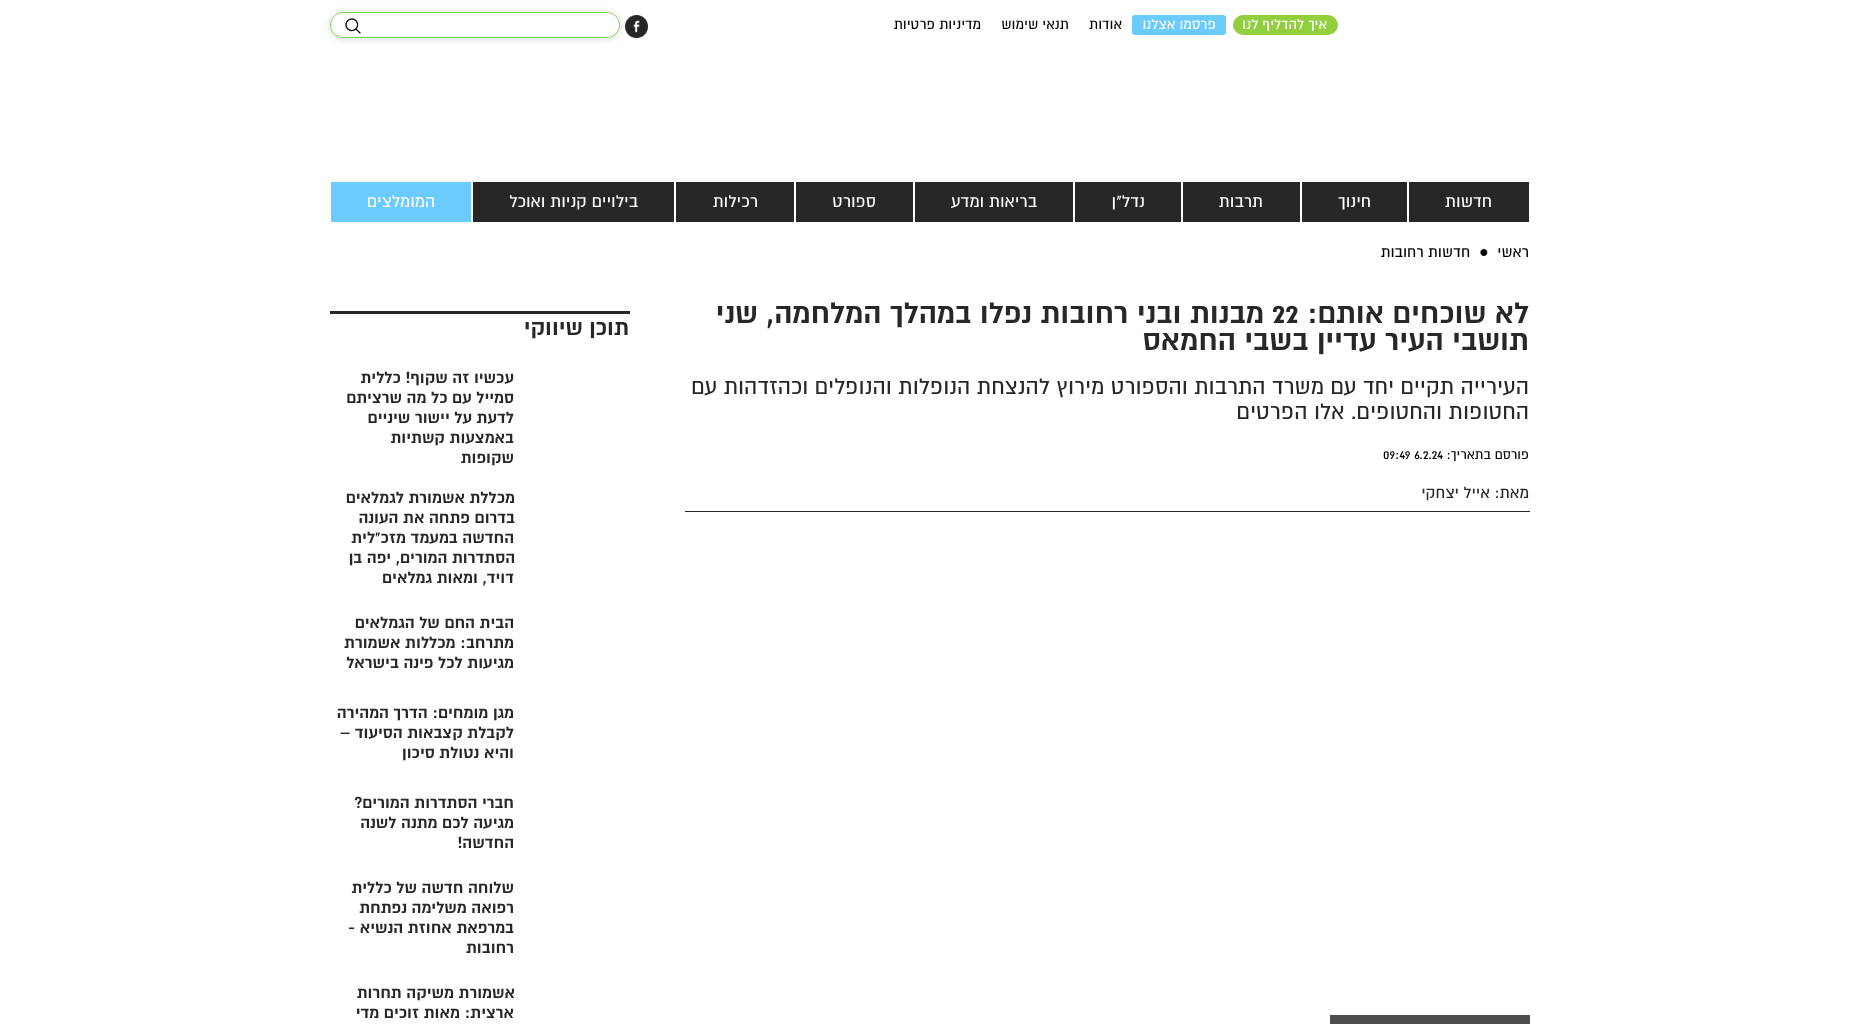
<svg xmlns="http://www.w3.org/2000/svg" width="1859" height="1024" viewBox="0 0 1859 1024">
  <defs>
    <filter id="blur1" x="-50%" y="-200%" width="200%" height="500%"><feGaussianBlur stdDeviation="3.5"/></filter>
  </defs>
  <rect width="100%" height="100%" fill="#ffffff"/>
  <rect x="1233" y="15" width="105" height="20" rx="10" fill="#91cf3e"/>
  <text x="1327" y="29" font-family="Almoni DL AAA" font-size="16" direction="rtl" fill="#ffffff">איך להדליף לנו</text>
  <rect x="1132" y="15" width="94" height="20" rx="3" fill="#6bcbff"/>
  <text x="1216" y="29" font-family="Almoni DL AAA" font-size="16" direction="rtl" fill="#ffffff">פרסמו אצלנו</text>
  <text x="1122" y="29" font-family="Almoni DL AAA" font-size="16" direction="rtl" fill="#010101">אודות</text>
  <text x="1069" y="29" font-family="Almoni DL AAA" font-size="16" direction="rtl" fill="#010101">תנאי שימוש</text>
  <text x="981" y="29" font-family="Almoni DL AAA" font-size="16" direction="rtl" fill="#010101">מדיניות פרטיות</text>
  <image x="625" y="15" width="23" height="23" href="img1.png"/>
  <rect x="330" y="13" width="290" height="26" rx="13" fill="#000000" fill-opacity="0.14" filter="url(#blur1)"/>
  <rect x="330.5" y="12.5" width="289" height="25" rx="12.5" fill="none" stroke="#74d746"/>
  <path d="M376 13H607C613.5 13 619 18.5 619 25C619 31.5 613.5 37 607 37H376Z" fill="#ffffff"/>
  <path d="M343 13H376V37H343C336.5 37 331 31.5 331 25C331 18.5 336.5 13 343 13Z" fill="#ffffff"/>
  <image x="345" y="18" width="16" height="16" href="img2.png"/>
  <rect x="1409" y="182" width="120" height="40" fill="#272727"/>
  <text x="1492" y="207" font-family="Almoni DL AAA" font-size="19" direction="rtl" fill="#ffffff">חדשות</text>
  <rect x="1302" y="182" width="105" height="40" fill="#272727"/>
  <text x="1371" y="207" font-family="Almoni DL AAA" font-size="19" direction="rtl" fill="#ffffff">חינוך</text>
  <rect x="1183" y="182" width="117" height="40" fill="#272727"/>
  <text x="1263" y="207" font-family="Almoni DL AAA" font-size="19" direction="rtl" fill="#ffffff">תרבות</text>
  <rect x="1075" y="182" width="106" height="40" fill="#272727"/>
  <text x="1145" y="207" font-family="Almoni DL AAA" font-size="19" direction="rtl" fill="#ffffff">נדל"ן</text>
  <rect x="915" y="182" width="158" height="40" fill="#272727"/>
  <text x="1037" y="207" font-family="Almoni DL AAA" font-size="19" direction="rtl" fill="#ffffff">בריאות ומדע</text>
  <rect x="796" y="182" width="117" height="40" fill="#272727"/>
  <text x="876" y="207" font-family="Almoni DL AAA" font-size="19" direction="rtl" fill="#ffffff">ספורט</text>
  <rect x="676" y="182" width="118" height="40" fill="#272727"/>
  <text x="758" y="207" font-family="Almoni DL AAA" font-size="19" direction="rtl" fill="#ffffff">רכילות</text>
  <rect x="473" y="182" width="201" height="40" fill="#272727"/>
  <text x="638" y="207" font-family="Almoni DL AAA" font-size="19" direction="rtl" fill="#ffffff">בילויים קניות ואוכל</text>
  <rect x="331" y="182" width="140" height="40" fill="#6bcbff"/>
  <text x="435" y="207" font-family="Almoni DL AAA" font-size="19" direction="rtl" fill="#ffffff">המומלצים</text>
  <text x="1529" y="257" font-family="Almoni DL AAA" font-size="17" direction="rtl" fill="#010101">ראשי</text>
  <text x="1479" y="257" font-family="Liberation Sans" font-size="16" fill="#010101">●</text>
  <text x="1470" y="257" font-family="Almoni DL AAA" font-size="17" direction="rtl" fill="#010101">חדשות רחובות</text>
  <text x="1529" y="323" font-family="Almoni DL AAA" font-size="33" font-weight="bold" direction="rtl" fill="#272727">לא שוכחים אותם:</text>
  <text x="1272" y="323" font-family="Almoni DL AAA" font-size="33" font-weight="bold" fill="#272727">22</text>
  <text x="1264" y="323" font-family="Almoni DL AAA" font-size="33" font-weight="bold" direction="rtl" fill="#272727">מבנות ובני רחובות נפלו במהלך המלחמה, שני</text>
  <text x="1529" y="350" font-family="Almoni DL AAA" font-size="33" font-weight="bold" direction="rtl" fill="#272727">תושבי העיר עדיין בשבי החמאס</text>
  <text x="1529" y="394" font-family="Almoni DL AAA" font-size="25" direction="rtl" fill="#272727">העירייה תקיים יחד עם משרד התרבות והספורט מירוץ להנצחת הנופלות והנופלים וכהזדהות עם</text>
  <text x="1529" y="419" font-family="Almoni DL AAA" font-size="25" direction="rtl" fill="#272727">החטופות והחטופים. אלו הפרטים</text>
  <text x="1529" y="459" font-family="Almoni DL AAA" font-size="15" direction="rtl" fill="#010101">פורסם בתאריך:</text>
  <text x="1383" y="459" font-family="Almoni DL AAA" font-size="15" fill="#010101">09:49 6.2.24</text>
  <rect x="685" y="511" width="845" height="1" fill="#272727"/>
  <text x="1529" y="498" font-family="Almoni DL AAA" font-size="18" direction="rtl" fill="#272727">מאת: אייל יצחקי</text>
  <rect x="1330" y="1015" width="200" height="9" fill="#4d4d4d"/>
  <rect x="330" y="311" width="300" height="3" fill="#272727"/>
  <text x="629" y="335" font-family="Almoni DL AAA" font-size="25" font-weight="bold" direction="rtl" fill="#272727">תוכן שיווקי</text>
  <text x="514" y="383" font-family="Almoni DL AAA" font-size="18" font-weight="bold" direction="rtl" fill="#272727">עכשיו זה שקוף! כללית</text>
  <text x="514" y="403" font-family="Almoni DL AAA" font-size="18" font-weight="bold" direction="rtl" fill="#272727">סמייל עם כל מה שרציתם</text>
  <text x="514" y="423" font-family="Almoni DL AAA" font-size="18" font-weight="bold" direction="rtl" fill="#272727">לדעת על יישור שיניים</text>
  <text x="514" y="443" font-family="Almoni DL AAA" font-size="18" font-weight="bold" direction="rtl" fill="#272727">באמצעות קשתיות</text>
  <text x="514" y="463" font-family="Almoni DL AAA" font-size="18" font-weight="bold" direction="rtl" fill="#272727">שקופות</text>
  <text x="515" y="503" font-family="Almoni DL AAA" font-size="18" font-weight="bold" direction="rtl" fill="#272727">מכללת אשמורת לגמלאים</text>
  <text x="515" y="523" font-family="Almoni DL AAA" font-size="18" font-weight="bold" direction="rtl" fill="#272727">בדרום פתחה את העונה</text>
  <text x="514" y="543" font-family="Almoni DL AAA" font-size="18" font-weight="bold" direction="rtl" fill="#272727">החדשה במעמד מזכ"לית</text>
  <text x="515" y="563" font-family="Almoni DL AAA" font-size="18" font-weight="bold" direction="rtl" fill="#272727">הסתדרות המורים, יפה בן</text>
  <text x="514" y="583" font-family="Almoni DL AAA" font-size="18" font-weight="bold" direction="rtl" fill="#272727">דויד, ומאות גמלאים</text>
  <text x="514" y="628" font-family="Almoni DL AAA" font-size="18" font-weight="bold" direction="rtl" fill="#272727">הבית החם של הגמלאים</text>
  <text x="514" y="648" font-family="Almoni DL AAA" font-size="18" font-weight="bold" direction="rtl" fill="#272727">מתרחב: מכללות אשמורת</text>
  <text x="514" y="668" font-family="Almoni DL AAA" font-size="18" font-weight="bold" direction="rtl" fill="#272727">מגיעות לכל פינה בישראל</text>
  <text x="514" y="718" font-family="Almoni DL AAA" font-size="18" font-weight="bold" direction="rtl" fill="#272727">מגן מומחים: הדרך המהירה</text>
  <text x="514" y="738" font-family="Almoni DL AAA" font-size="18" font-weight="bold" direction="rtl" fill="#272727">לקבלת קצבאות הסיעוד –</text>
  <text x="514" y="758" font-family="Almoni DL AAA" font-size="18" font-weight="bold" direction="rtl" fill="#272727">והיא נטולת סיכון</text>
  <text x="514" y="808" font-family="Almoni DL AAA" font-size="18" font-weight="bold" direction="rtl" fill="#272727">חברי הסתדרות המורים?</text>
  <text x="514" y="828" font-family="Almoni DL AAA" font-size="18" font-weight="bold" direction="rtl" fill="#272727">מגיעה לכם מתנה לשנה</text>
  <text x="514" y="848" font-family="Almoni DL AAA" font-size="18" font-weight="bold" direction="rtl" fill="#272727">החדשה!</text>
  <text x="514" y="893" font-family="Almoni DL AAA" font-size="18" font-weight="bold" direction="rtl" fill="#272727">שלוחה חדשה של כללית</text>
  <text x="514" y="913" font-family="Almoni DL AAA" font-size="18" font-weight="bold" direction="rtl" fill="#272727">רפואה משלימה נפתחת</text>
  <text x="514" y="933" font-family="Almoni DL AAA" font-size="18" font-weight="bold" direction="rtl" fill="#272727">במרפאת אחוזת הנשיא -</text>
  <text x="514" y="953" font-family="Almoni DL AAA" font-size="18" font-weight="bold" direction="rtl" fill="#272727">רחובות</text>
  <text x="515" y="998" font-family="Almoni DL AAA" font-size="18" font-weight="bold" direction="rtl" fill="#272727">אשמורת משיקה תחרות</text>
  <text x="514" y="1018" font-family="Almoni DL AAA" font-size="18" font-weight="bold" direction="rtl" fill="#272727">ארצית: מאות זוכים מדי</text>
</svg>
